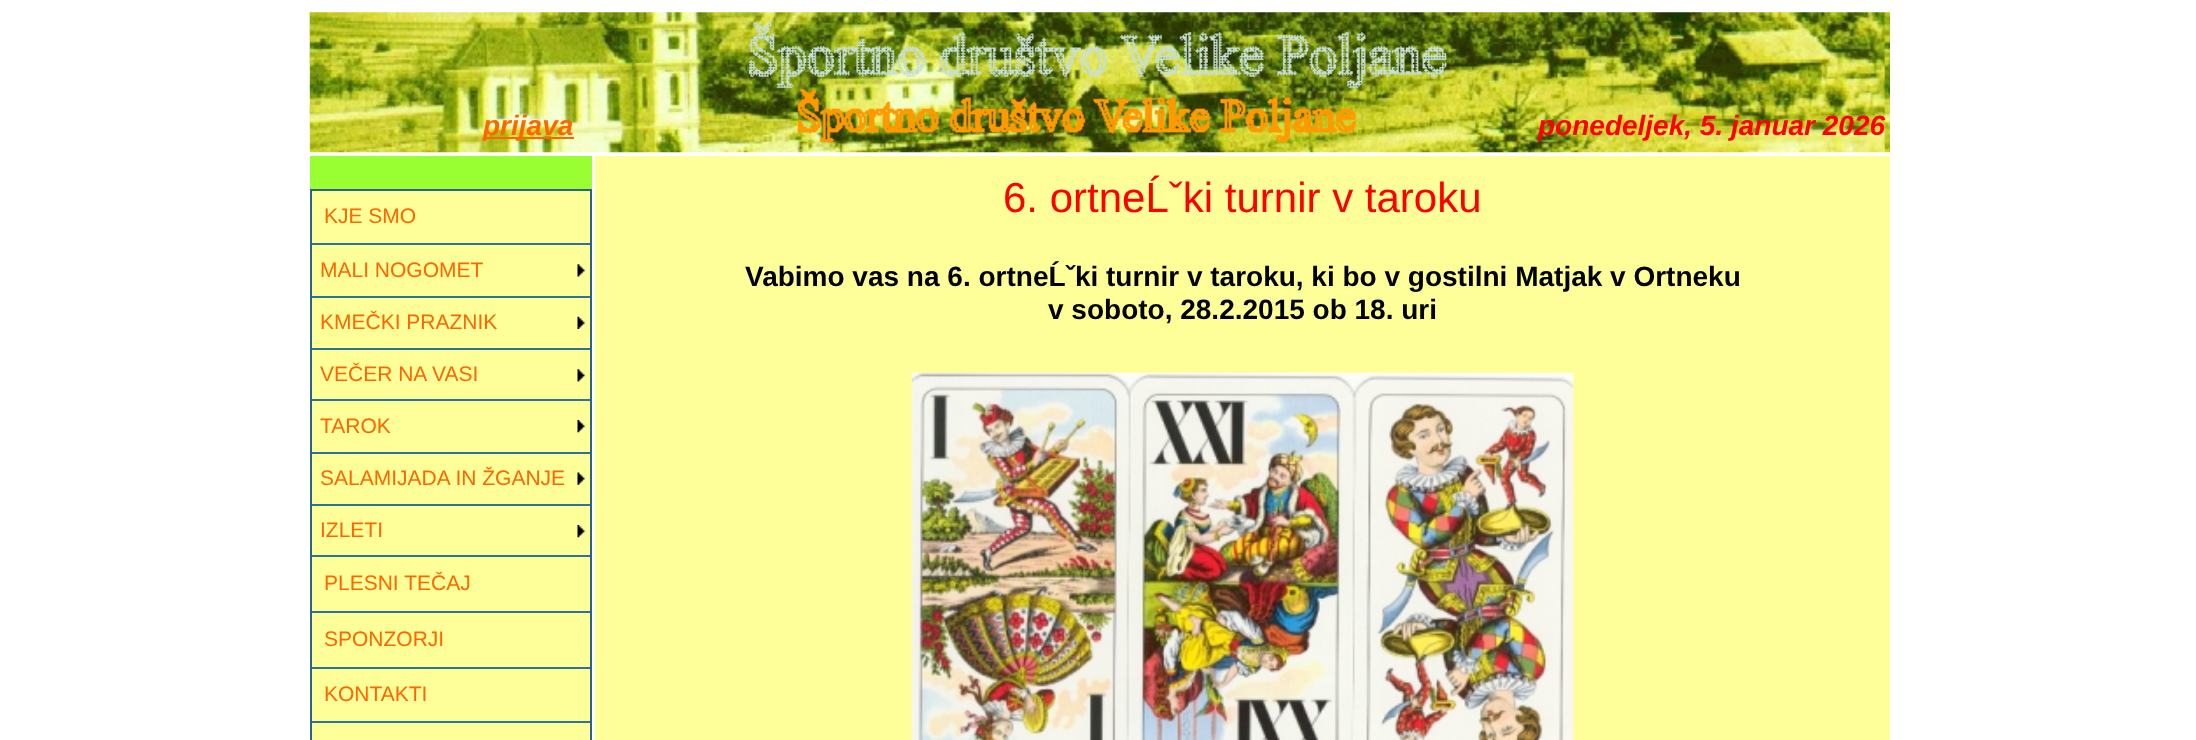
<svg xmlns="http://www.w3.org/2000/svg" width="2196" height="740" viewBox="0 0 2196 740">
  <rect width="100%" height="100%" fill="#ffffff"/>
  <image x="309" y="12" width="1581" height="141" href="img1.png"/>
  <rect x="483" y="137" width="91" height="2" fill="#ff6600"/>
  <text x="483" y="135" font-family="Liberation Sans" font-size="28" font-weight="bold" font-style="italic" fill="#ff6600">prijava</text>
  <image x="749" y="22" width="698" height="121" href="img2.png"/>
  <text x="1538" y="135" font-family="Liberation Sans" font-size="28" font-weight="bold" font-style="italic" fill="#ff0000">ponedeljek, 5. januar 2026</text>
  <rect x="310" y="156" width="282" height="33" fill="#99ff33"/>
  <rect x="311" y="190" width="280" height="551" fill="#ffff99" stroke="#296488" stroke-width="2"/>
  <text x="324" y="223" font-family="Liberation Sans" font-size="21" fill="#ff6600">KJE SMO</text>
  <rect x="312" y="243" width="278" height="2" fill="#2d729d"/>
  <text x="320" y="277" font-family="Liberation Sans" font-size="21" fill="#ff6600">MALI NOGOMET</text>
  <image x="577" y="264" width="8" height="13" href="img3.png"/>
  <rect x="312" y="296" width="278" height="2" fill="#2d729d"/>
  <text x="320" y="329" font-family="Liberation Sans" font-size="21" fill="#ff6600">KMEČKI PRAZNIK</text>
  <image x="577" y="316" width="8" height="13" href="img4.png"/>
  <rect x="312" y="348" width="278" height="2" fill="#2d729d"/>
  <text x="320" y="381" font-family="Liberation Sans" font-size="21" fill="#ff6600">VEČER NA VASI</text>
  <image x="577" y="369" width="8" height="13" href="img3.png"/>
  <rect x="312" y="399" width="278" height="2" fill="#2d729d"/>
  <text x="320" y="433" font-family="Liberation Sans" font-size="21" fill="#ff6600">TAROK</text>
  <image x="577" y="420" width="8" height="13" href="img5.png"/>
  <rect x="312" y="452" width="278" height="2" fill="#2d729d"/>
  <text x="320" y="485" font-family="Liberation Sans" font-size="21" fill="#ff6600">SALAMIJADA IN ŽGANJE</text>
  <image x="577" y="472" width="8" height="13" href="img6.png"/>
  <rect x="312" y="504" width="278" height="2" fill="#2d729d"/>
  <text x="320" y="537" font-family="Liberation Sans" font-size="21" fill="#ff6600">IZLETI</text>
  <image x="577" y="525" width="8" height="13" href="img5.png"/>
  <rect x="312" y="555" width="278" height="2" fill="#2d729d"/>
  <text x="324" y="590" font-family="Liberation Sans" font-size="21" fill="#ff6600">PLESNI TEČAJ</text>
  <rect x="312" y="611" width="278" height="2" fill="#2d729d"/>
  <text x="324" y="646" font-family="Liberation Sans" font-size="21" fill="#ff6600">SPONZORJI</text>
  <rect x="312" y="667" width="278" height="2" fill="#2d729d"/>
  <text x="324" y="701" font-family="Liberation Sans" font-size="21" fill="#ff6600">KONTAKTI</text>
  <rect x="312" y="721" width="278" height="2" fill="#2d729d"/>
  <rect x="595" y="156" width="1295" height="584" fill="#ffff99"/>
  <text x="1003" y="212" font-family="Liberation Sans" font-size="42" fill="#ff0000">6. ortneĹˇki turnir v taroku</text>
  <text x="745" y="286" font-family="Liberation Sans" font-size="28" font-weight="bold" fill="#000000">Vabimo vas na 6. ortneĹˇki turnir v taroku, ki bo v gostilni Matjak v Ortneku</text>
  <text x="1048" y="319" font-family="Liberation Sans" font-size="28" font-weight="bold" fill="#000000">v soboto, 28.2.2015 ob 18. uri</text>
  <image x="911" y="372" width="663" height="368" href="img7.png"/>
</svg>
